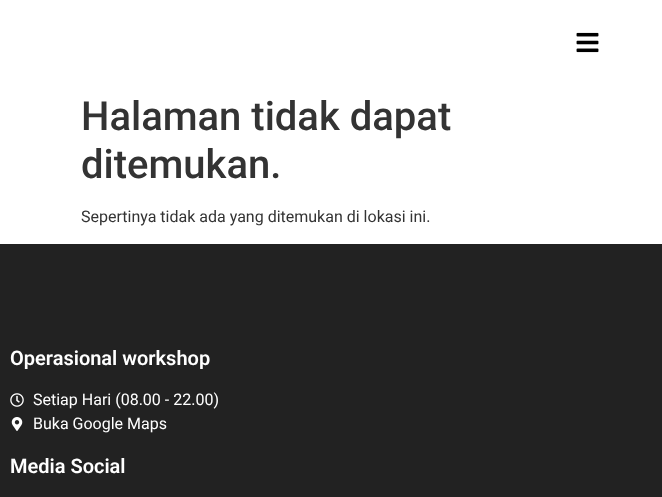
<svg xmlns="http://www.w3.org/2000/svg" width="662" height="497" viewBox="0 0 662 497">
  <rect width="100%" height="100%" fill="#ffffff"/>
  <image x="576" y="32" width="23" height="21" href="img1.png"/>
  <text x="81" y="130" font-family="Roboto" font-size="40" font-weight="500" fill="#333333">Halaman tidak dapat</text>
  <text x="81" y="178" font-family="Roboto" font-size="40" font-weight="500" fill="#333333">ditemukan.</text>
  <text x="81" y="222" font-family="Roboto" font-size="16" fill="#333333">Sepertinya tidak ada yang ditemukan di lokasi ini.</text>
  <rect x="0" y="244" width="662" height="253" fill="#222222"/>
  <text x="10" y="365" font-family="Roboto" font-size="20" font-weight="600" fill="#ffffff">Operasional workshop</text>
  <image x="10" y="393" width="14" height="14" href="img2.png"/>
  <text x="33" y="405" font-family="Roboto" font-size="16" fill="#ffffff">Setiap Hari (08.00 - 22.00)</text>
  <image x="11" y="417" width="12" height="14" href="img3.png"/>
  <text x="33" y="429" font-family="Roboto" font-size="16" fill="#ffffff">Buka Google Maps</text>
  <text x="10" y="473" font-family="Roboto" font-size="20" font-weight="600" fill="#ffffff">Media Social</text>
</svg>
